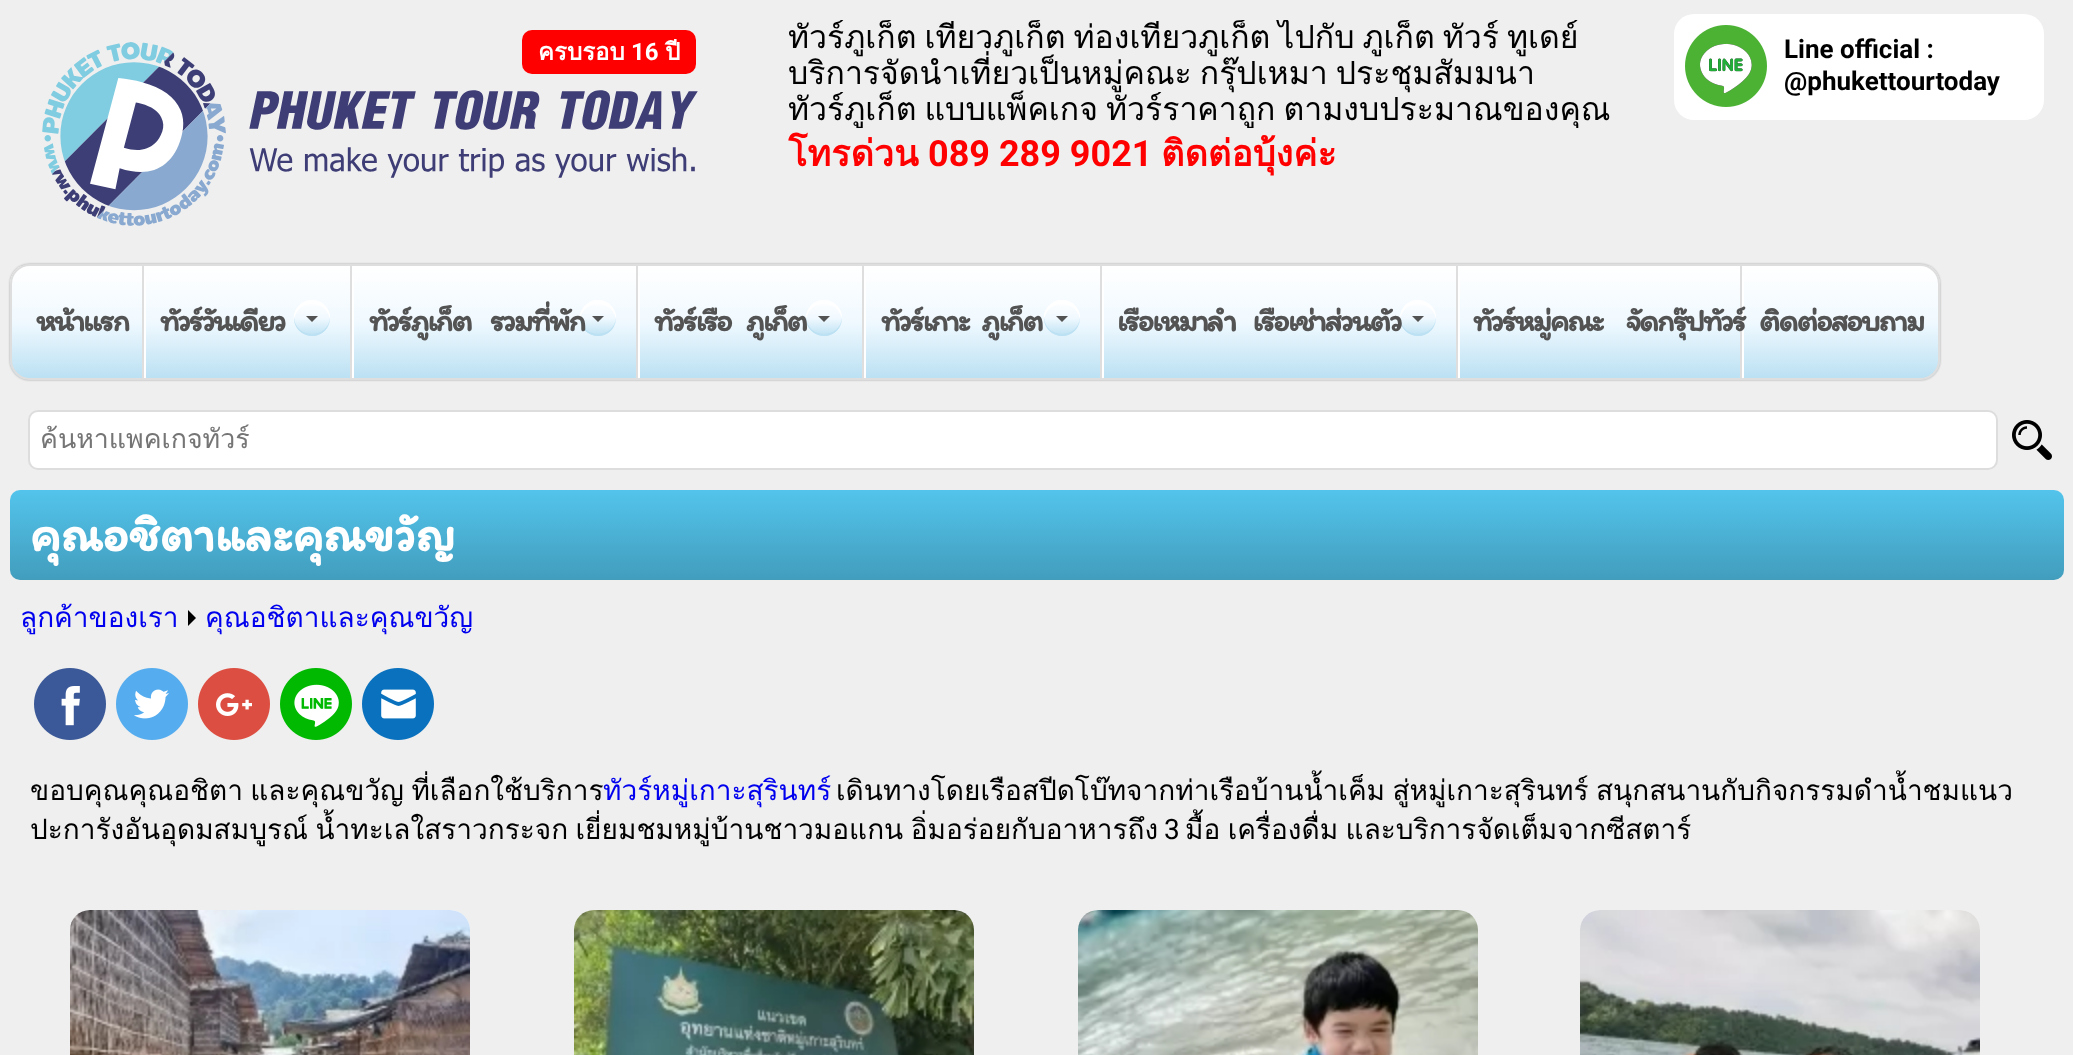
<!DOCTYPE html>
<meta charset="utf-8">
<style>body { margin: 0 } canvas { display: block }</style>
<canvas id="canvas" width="2073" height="1055"></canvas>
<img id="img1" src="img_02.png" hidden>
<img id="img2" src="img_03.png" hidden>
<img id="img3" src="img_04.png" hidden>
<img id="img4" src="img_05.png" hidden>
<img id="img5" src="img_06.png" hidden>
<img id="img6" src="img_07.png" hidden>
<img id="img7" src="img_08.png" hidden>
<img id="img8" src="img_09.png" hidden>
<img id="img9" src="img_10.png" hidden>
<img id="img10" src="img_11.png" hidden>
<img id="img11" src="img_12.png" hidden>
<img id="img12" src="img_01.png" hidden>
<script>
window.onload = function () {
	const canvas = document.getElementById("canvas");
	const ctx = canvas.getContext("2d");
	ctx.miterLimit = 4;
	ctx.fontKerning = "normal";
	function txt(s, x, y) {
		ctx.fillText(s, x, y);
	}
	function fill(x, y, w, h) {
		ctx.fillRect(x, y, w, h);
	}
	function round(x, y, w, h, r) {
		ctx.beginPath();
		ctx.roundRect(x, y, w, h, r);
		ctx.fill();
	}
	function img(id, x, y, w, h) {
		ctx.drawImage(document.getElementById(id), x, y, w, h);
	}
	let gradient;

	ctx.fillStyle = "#EFEFEF";
	fill(0, 0, 2073, 1055);
	ctx.fillStyle = "#FF0000";
	round(522, 30, 174, 44, 10);
	ctx.fillStyle = "#FFFFFF";
	round(1674, 14, 370, 106, 20);
	img("img1", 1685, 25, 82, 82);
	ctx.fillStyle = "rgba(0, 0, 0, 0.3)";
	ctx.filter = "blur(1px)";
	ctx.beginPath();
	ctx.roundRect(10, 264, 1930, 116, 20);
	ctx.fill();
	ctx.filter = "none";
	ctx.save();
	ctx.beginPath();
	ctx.roundRect(10, 264, 1930, 116, 20);
	ctx.clip();
	gradient = ctx.createLinearGradient(975, 266, 975, 378);
	gradient.addColorStop(0.01, "#FFFFFF");
	gradient.addColorStop(0.5, "#F0F9FF");
	gradient.addColorStop(0.99, "#BCE1F3");
	ctx.fillStyle = gradient;
	fill(10, 266, 1930, 112);
	ctx.restore();
	ctx.beginPath();
	ctx.roundRect(11, 265, 1928, 114, 19);
	ctx.strokeStyle = "#DEDEDE";
	ctx.lineWidth = 2;
	ctx.stroke();
	ctx.fillStyle = "#DEDEDE";
	fill(142, 266, 2, 112);
	fill(350, 266, 2, 112);
	ctx.fillStyle = "#FFFFFF";
	fill(144, 276, 2, 102);
	gradient = ctx.createLinearGradient(330, 300, 330, 372);
	gradient.addColorStop(0, "#FFFFFF");
	gradient.addColorStop(0.25, "#F1F9FF");
	gradient.addColorStop(0.5, "#BCE1F3");
	gradient.addColorStop(0.75, "#FFFFFF");
	gradient.addColorStop(1, "#F1F9FF");
	ctx.fillStyle = gradient;
	ctx.beginPath();
	ctx.arc(312, 318, 18, 0, Math.PI * 2);
	ctx.fill();
	ctx.fillStyle = "#FFFFFF";
	ctx.beginPath();
	ctx.moveTo(312, 304);
	ctx.bezierCurveTo(323, 304, 329, 311.5, 330, 320);
	ctx.bezierCurveTo(330.5, 316, 329.5, 311.5, 327, 308);
	ctx.bezierCurveTo(316.5, 292.5, 292, 301.5, 294, 320);
	ctx.bezierCurveTo(295, 311.5, 301, 304, 312, 304);
	ctx.closePath();
	ctx.fill();
	ctx.fillStyle = "#BCE1F3";
	ctx.beginPath();
	ctx.moveTo(330, 317);
	ctx.bezierCurveTo(329, 339.5, 295, 339.5, 294, 317);
	ctx.bezierCurveTo(293, 335, 317, 343, 327, 328);
	ctx.bezierCurveTo(329, 325, 330, 321, 330, 317);
	ctx.closePath();
	ctx.fill();
	ctx.fillStyle = "#535353";
	ctx.beginPath();
	ctx.moveTo(306, 316);
	ctx.lineTo(318, 316);
	ctx.lineTo(312, 322);
	ctx.closePath();
	ctx.fill();
	ctx.fillStyle = "#DEDEDE";
	fill(636, 266, 2, 112);
	ctx.fillStyle = "#FFFFFF";
	fill(352, 276, 2, 102);
	gradient = ctx.createLinearGradient(616, 300, 616, 372);
	gradient.addColorStop(0, "#FFFFFF");
	gradient.addColorStop(0.25, "#F1F9FF");
	gradient.addColorStop(0.5, "#BCE1F3");
	gradient.addColorStop(0.75, "#FFFFFF");
	gradient.addColorStop(1, "#F1F9FF");
	ctx.fillStyle = gradient;
	ctx.beginPath();
	ctx.arc(598, 318, 18, 0, Math.PI * 2);
	ctx.fill();
	ctx.fillStyle = "#FFFFFF";
	ctx.beginPath();
	ctx.moveTo(598, 304);
	ctx.bezierCurveTo(609, 304, 615, 311.5, 616, 320);
	ctx.bezierCurveTo(616.5, 316, 615.5, 311.5, 613, 308);
	ctx.bezierCurveTo(602.5, 292.5, 578, 301.5, 580, 320);
	ctx.bezierCurveTo(581, 311.5, 587, 304, 598, 304);
	ctx.closePath();
	ctx.fill();
	ctx.fillStyle = "#BCE1F3";
	ctx.beginPath();
	ctx.moveTo(616, 317);
	ctx.bezierCurveTo(615, 339.5, 581, 339.5, 580, 317);
	ctx.bezierCurveTo(579, 335, 603, 343, 613, 328);
	ctx.bezierCurveTo(615, 325, 616, 321, 616, 317);
	ctx.closePath();
	ctx.fill();
	ctx.fillStyle = "#535353";
	ctx.beginPath();
	ctx.moveTo(592, 316);
	ctx.lineTo(604, 316);
	ctx.lineTo(598, 322);
	ctx.closePath();
	ctx.fill();
	ctx.fillStyle = "#DEDEDE";
	fill(862, 266, 2, 112);
	ctx.fillStyle = "#FFFFFF";
	fill(638, 276, 2, 102);
	gradient = ctx.createLinearGradient(842, 300, 842, 372);
	gradient.addColorStop(0, "#FFFFFF");
	gradient.addColorStop(0.25, "#F1F9FF");
	gradient.addColorStop(0.5, "#BCE1F3");
	gradient.addColorStop(0.75, "#FFFFFF");
	gradient.addColorStop(1, "#F1F9FF");
	ctx.fillStyle = gradient;
	ctx.beginPath();
	ctx.arc(824, 318, 18, 0, Math.PI * 2);
	ctx.fill();
	ctx.fillStyle = "#FFFFFF";
	ctx.beginPath();
	ctx.moveTo(824, 304);
	ctx.bezierCurveTo(835, 304, 841, 311.5, 842, 320);
	ctx.bezierCurveTo(844, 301.5, 819.5, 292.5, 809, 308);
	ctx.bezierCurveTo(806.5, 311.5, 805.5, 316, 806, 320);
	ctx.bezierCurveTo(807, 311.5, 813, 304, 824, 304);
	ctx.closePath();
	ctx.fill();
	ctx.fillStyle = "#BCE1F3";
	ctx.beginPath();
	ctx.moveTo(842, 317);
	ctx.bezierCurveTo(841, 339.5, 807, 339.5, 806, 317);
	ctx.bezierCurveTo(805, 335, 829, 343, 839, 328);
	ctx.bezierCurveTo(841, 325, 842, 321, 842, 317);
	ctx.closePath();
	ctx.fill();
	ctx.fillStyle = "#535353";
	ctx.beginPath();
	ctx.moveTo(818, 316);
	ctx.lineTo(830, 316);
	ctx.lineTo(824, 322);
	ctx.closePath();
	ctx.fill();
	ctx.fillStyle = "#DEDEDE";
	fill(1100, 266, 2, 112);
	ctx.fillStyle = "#FFFFFF";
	fill(864, 276, 2, 102);
	gradient = ctx.createLinearGradient(1080, 300, 1080, 372);
	gradient.addColorStop(0, "#FFFFFF");
	gradient.addColorStop(0.25, "#F1F9FF");
	gradient.addColorStop(0.5, "#BCE1F3");
	gradient.addColorStop(0.75, "#FFFFFF");
	gradient.addColorStop(1, "#F1F9FF");
	ctx.fillStyle = gradient;
	ctx.beginPath();
	ctx.arc(1062, 318, 18, 0, Math.PI * 2);
	ctx.fill();
	ctx.fillStyle = "#FFFFFF";
	ctx.beginPath();
	ctx.moveTo(1062, 304);
	ctx.bezierCurveTo(1073, 304, 1079, 311.5, 1080, 320);
	ctx.bezierCurveTo(1080.5, 316, 1079.5, 311.5, 1077, 308);
	ctx.bezierCurveTo(1066.5, 292.5, 1042, 301.5, 1044, 320);
	ctx.bezierCurveTo(1045, 311.5, 1051, 304, 1062, 304);
	ctx.closePath();
	ctx.fill();
	ctx.fillStyle = "#BCE1F3";
	ctx.beginPath();
	ctx.moveTo(1080, 317);
	ctx.bezierCurveTo(1079, 339.5, 1045, 339.5, 1044, 317);
	ctx.bezierCurveTo(1043, 335, 1067, 343, 1077, 328);
	ctx.bezierCurveTo(1079, 325, 1080, 321, 1080, 317);
	ctx.closePath();
	ctx.fill();
	ctx.fillStyle = "#535353";
	ctx.beginPath();
	ctx.moveTo(1056, 316);
	ctx.lineTo(1068, 316);
	ctx.lineTo(1062, 322);
	ctx.closePath();
	ctx.fill();
	ctx.fillStyle = "#DEDEDE";
	fill(1456, 266, 2, 112);
	ctx.fillStyle = "#FFFFFF";
	fill(1102, 276, 2, 102);
	gradient = ctx.createLinearGradient(1436, 300, 1436, 372);
	gradient.addColorStop(0, "#FFFFFF");
	gradient.addColorStop(0.25, "#F1F9FF");
	gradient.addColorStop(0.5, "#BCE1F3");
	gradient.addColorStop(0.75, "#FFFFFF");
	gradient.addColorStop(1, "#F1F9FF");
	ctx.fillStyle = gradient;
	ctx.beginPath();
	ctx.arc(1418, 318, 18, 0, Math.PI * 2);
	ctx.fill();
	ctx.fillStyle = "#FFFFFF";
	ctx.beginPath();
	ctx.moveTo(1418, 304);
	ctx.bezierCurveTo(1429, 304, 1435, 311.5, 1436, 320);
	ctx.bezierCurveTo(1438, 301.5, 1413.5, 292.5, 1403, 308);
	ctx.bezierCurveTo(1400.5, 311.5, 1399.5, 316, 1400, 320);
	ctx.bezierCurveTo(1401, 311.5, 1407, 304, 1418, 304);
	ctx.closePath();
	ctx.fill();
	ctx.fillStyle = "#BCE1F3";
	ctx.beginPath();
	ctx.moveTo(1436, 317);
	ctx.bezierCurveTo(1435, 339.5, 1401, 339.5, 1400, 317);
	ctx.bezierCurveTo(1399, 335, 1423, 343, 1433, 328);
	ctx.bezierCurveTo(1435, 325, 1436, 321, 1436, 317);
	ctx.closePath();
	ctx.fill();
	ctx.fillStyle = "#535353";
	ctx.beginPath();
	ctx.moveTo(1412, 316);
	ctx.lineTo(1424, 316);
	ctx.lineTo(1418, 322);
	ctx.closePath();
	ctx.fill();
	ctx.fillStyle = "#DEDEDE";
	fill(1740, 266, 2, 112);
	ctx.fillStyle = "#FFFFFF";
	fill(1458, 276, 2, 102);
	fill(1742, 276, 2, 102);
	ctx.beginPath();
	ctx.roundRect(29, 411, 1968, 58, 9);
	ctx.fill();
	ctx.strokeStyle = "#DDDDDD";
	ctx.stroke();
	img("img2", 2012, 420, 40, 40);
	gradient = ctx.createLinearGradient(1037, 490, 1037, 580);
	gradient.addColorStop(0, "#53C4EC");
	gradient.addColorStop(1, "#429DBD");
	ctx.fillStyle = gradient;
	round(10, 490, 2054, 90, 10);
	ctx.fillStyle = "#000000";
	ctx.beginPath();
	ctx.moveTo(188, 626);
	ctx.lineTo(188, 610);
	ctx.lineTo(196, 618);
	ctx.closePath();
	ctx.fill();
	img("img3", 34, 668, 72, 72);
	img("img4", 116, 668, 72, 72);
	img("img5", 198, 668, 72, 72);
	img("img6", 280, 668, 72, 72);
	img("img7", 362, 668, 72, 72);
	ctx.fillStyle = "#FFFFFF";
	round(70, 910, 400, 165, 20);
	img("img8", 70, 910, 400, 145);
	round(574, 910, 400, 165, 20);
	img("img9", 574, 910, 400, 145);
	round(1078, 910, 400, 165, 20);
	img("img10", 1078, 910, 400, 145);
	round(1580, 910, 400, 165, 20);
	img("img11", 1580, 910, 400, 145);
	ctx.font = "bold 24px Loma";
	txt("ครบรอบ", 538, 60);
	ctx.font = "bold 24px Roboto";
	txt("16", 631, 60);
	ctx.font = "bold 24px Loma";
	txt("ปี", 665, 60);
	img("img12", 42, 42, 656, 184);
	ctx.save();
	ctx.beginPath();
	ctx.rect(788, 20, 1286, 108);
	ctx.clip();
	ctx.wordSpacing = "-2.75px";
	ctx.font = "32px Loma";
	ctx.fillStyle = "#000000";
	txt("ทัวร์ภูเก็ต เที่ยวภูเก็ต ท่องเที่ยวภูเก็ต ไปกับ ภูเก็ต ทัวร์ ทูเดย์", 788, 48);
	ctx.restore();
	ctx.wordSpacing = "-2.75px";
	ctx.font = "32px Loma";
	ctx.fillStyle = "#000000";
	txt("บริการจัดนำเที่ยวเป็นหมู่คณะ กรุ๊ปเหมา ประชุมสัมมนา", 788, 84);
	ctx.save();
	ctx.beginPath();
	ctx.rect(788, 20, 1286, 108);
	ctx.clip();
	txt("ทัวร์ภูเก็ต แบบแพ็คเกจ ทัวร์ราคาถูก ตามงบประมาณของคุณ", 788, 120);
	ctx.restore();
	ctx.wordSpacing = "0px";
	ctx.font = "bold 26px Roboto";
	txt("Line official :", 1784, 58);
	txt("@phukettourtoday", 1784, 90);
	ctx.font = "bold 36px Loma";
	ctx.fillStyle = "#FF0000";
	txt("โทรด่วน", 788, 166);
	ctx.font = "bold 36px Roboto";
	txt("089 289 9021", 928, 166);
	ctx.font = "bold 36px Loma";
	txt("ติดต่อบุ้งค่ะ", 1161, 166);
	ctx.letterSpacing = "-2px";
	ctx.font = "bold 31.5px Itim";
	ctx.fillStyle = "#535353";
	txt("หน้าแรก", 36, 331);
	txt("ทัวร์วันเดียว", 160, 331);
	ctx.wordSpacing = "14px";
	txt("ทัวร์ภูเก็ต รวมที่พัก", 369, 331);
	ctx.wordSpacing = "10px";
	txt("ทัวร์เรือ ภูเก็ต", 654, 331);
	ctx.wordSpacing = "8px";
	txt("ทัวร์เกาะ ภูเก็ต", 881, 331);
	ctx.wordSpacing = "12px";
	txt("เรือเหมาลำ เรือเช่าส่วนตัว", 1117, 331);
	ctx.wordSpacing = "18px";
	txt("ทัวร์หมู่คณะ จัดกรุ๊ปทัวร์", 1473, 331);
	ctx.wordSpacing = "0px";
	txt("ติดต่อสอบถาม", 1759, 331);
	ctx.save();
	ctx.beginPath();
	ctx.rect(40, 418, 1920, 42);
	ctx.clip();
	ctx.letterSpacing = "0px";
	ctx.font = "26.75px Loma";
	ctx.fillStyle = "#757575";
	txt("ค้นหาแพคเกจทัวร์", 40, 448);
	ctx.restore();
	ctx.letterSpacing = "0px";
	ctx.font = "bold 50px Itim";
	ctx.fillStyle = "#FFFFFF";
	txt("คุณอชิตาและคุณขวัญ", 30, 551);
	ctx.font = "28px Loma";
	ctx.fillStyle = "#0000EE";
	txt("ลูกค้าของเรา", 20, 627);
	txt("คุณอชิตาและคุณขวัญ", 205, 627);
	ctx.wordSpacing = "-2px";
	ctx.fillStyle = "#000000";
	txt("ขอบคุณคุณอชิตา และคุณขวัญ ที่เลือกใช้บริการ", 30, 800);
	ctx.wordSpacing = "0px";
	ctx.fillStyle = "#0000EE";
	txt("ทัวร์หมู่เกาะสุรินทร์", 603, 800);
	ctx.wordSpacing = "-2px";
	ctx.fillStyle = "#000000";
	txt("เดินทางโดยเรือสปีดโบ๊ทจากท่าเรือบ้านน้ำเค็ม สู่หมู่เกาะสุรินทร์ สนุกสนานกับกิจกรรมดำน้ำชมแนว", 836, 800);
	txt("ปะการังอันอุดมสมบูรณ์ น้ำทะเลใสราวกระจก เยี่ยมชมหมู่บ้านชาวมอแกน อิ่มอร่อยกับอาหารถึง", 30, 839);
	ctx.wordSpacing = "0px";
	ctx.font = "28px Roboto";
	txt("3", 1164, 839);
	ctx.wordSpacing = "-2px";
	ctx.font = "28px Loma";
	txt("มื้อ เครื่องดื่ม และบริการจัดเต็มจากซีสตาร์", 1185, 839);
};
</script>
